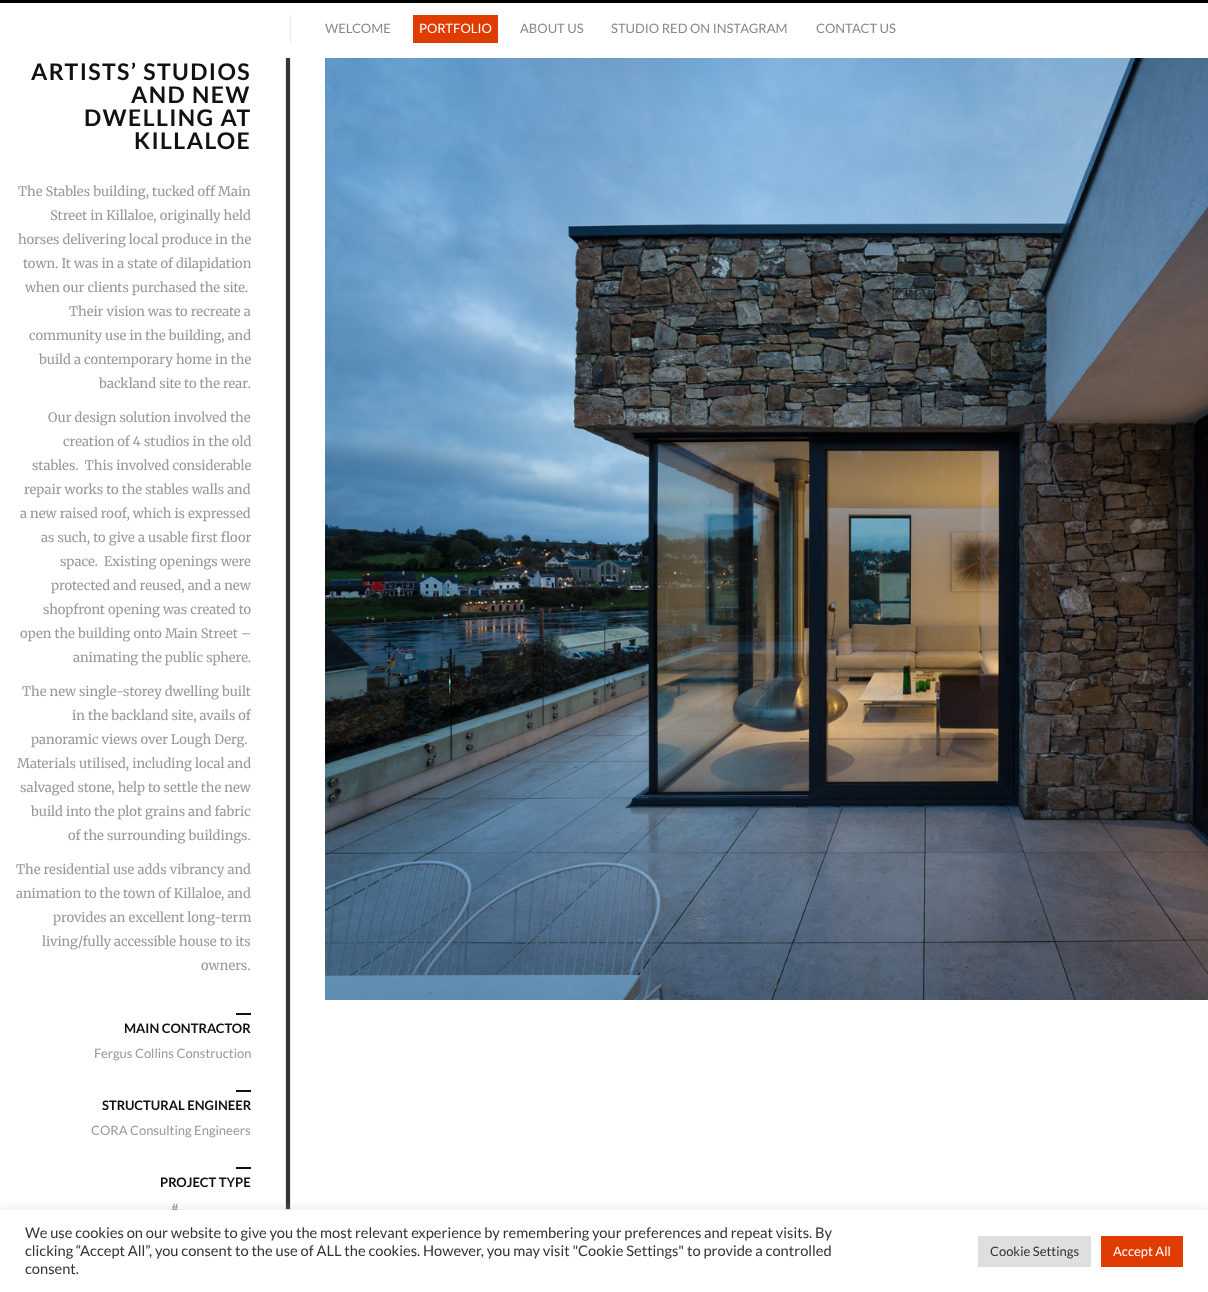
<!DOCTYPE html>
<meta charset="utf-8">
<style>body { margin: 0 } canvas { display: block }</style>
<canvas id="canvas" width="1208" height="1292"></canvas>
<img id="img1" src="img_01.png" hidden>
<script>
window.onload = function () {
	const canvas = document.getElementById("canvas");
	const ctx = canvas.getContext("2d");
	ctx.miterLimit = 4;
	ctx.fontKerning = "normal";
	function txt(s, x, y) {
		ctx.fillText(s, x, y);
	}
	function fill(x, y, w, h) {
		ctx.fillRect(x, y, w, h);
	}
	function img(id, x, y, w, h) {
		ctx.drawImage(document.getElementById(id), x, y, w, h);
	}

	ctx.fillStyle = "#FFFFFF";
	fill(0, 0, 1208, 1292);
	ctx.fillStyle = "#000000";
	fill(0, 0, 1208, 3);
	ctx.fillStyle = "#EBEBEB";
	fill(290, 15, 1, 28);
	ctx.fillStyle = "#E03B00";
	fill(413, 15, 85, 28);
	ctx.fillStyle = "#111111";
	fill(236, 1013, 15, 2);
	fill(236, 1090, 15, 2);
	fill(236, 1167, 15, 2);
	ctx.fillStyle = "#EAEAEA";
	fill(285, 58, 6, 1152);
	ctx.fillStyle = "#333333";
	fill(286, 58, 4, 1151);
	img("img1", 325, 58, 883, 942);
	ctx.fillStyle = "rgba(172, 171, 171, 0.3)";
	ctx.filter = "blur(5px)";
	ctx.beginPath();
	ctx.rect(0, 1209, 1208, 82);
	ctx.fill();
	ctx.filter = "none";
	ctx.font = "13px Lato";
	ctx.fillStyle = "#888888";
	txt("WELCOME", 325, 33);
	ctx.fillStyle = "#FFFFFF";
	txt("PORTFOLIO", 419, 33);
	ctx.fillStyle = "#888888";
	txt("ABOUT US", 520, 33);
	txt("STUDIO RED ON INSTAGRAM", 611, 33);
	txt("CONTACT US", 816, 33);
	ctx.letterSpacing = "1.4px";
	ctx.font = "bold 23px Lato";
	ctx.fillStyle = "#111111";
	txt("ARTISTS’ STUDIOS", 31, 80);
	txt("AND NEW", 131, 103);
	txt("DWELLING AT", 84, 126);
	txt("KILLALOE", 134, 149);
	ctx.letterSpacing = "0px";
	ctx.font = "300 13px Merriweather";
	ctx.fillStyle = "#999999";
	txt("The Stables building, tucked off Main", 18, 196);
	txt("Street in Killaloe, originally held", 50, 220);
	txt("horses delivering local produce in the", 18, 244);
	txt("town. It was in a state of dilapidation", 23, 268);
	txt("when our clients purchased the site.", 25, 292);
	txt("Their vision was to recreate a", 69, 316);
	txt("community use in the building, and", 29, 340);
	txt("build a contemporary home in the", 39, 364);
	txt("backland site to the rear.", 99, 388);
	txt("Our design solution involved the", 48, 422);
	txt("creation of 4 studios in the old", 63, 446);
	txt("stables.  This involved considerable", 32, 470);
	txt("repair works to the stables walls and", 24, 494);
	txt("a new raised roof, which is expressed", 20, 518);
	txt("as such, to give a usable first floor", 41, 542);
	txt("space.  Existing openings were", 60, 566);
	txt("protected and reused, and a new", 51, 590);
	txt("shopfront opening was created to", 43, 614);
	txt("open the building onto Main Street –", 20, 638);
	txt("animating the public sphere.", 73, 662);
	txt("The new single-storey dwelling built", 22, 696);
	txt("in the backland site, avails of", 72, 720);
	txt("panoramic views over Lough Derg.", 31, 744);
	txt("Materials utilised, including local and", 17, 768);
	txt("salvaged stone, help to settle the new", 20, 792);
	txt("build into the plot grains and fabric", 31, 816);
	txt("of the surrounding buildings.", 68, 840);
	txt("The residential use adds vibrancy and", 16, 874);
	txt("animation to the town of Killaloe, and", 16, 898);
	txt("provides an excellent long-term", 53, 922);
	txt("living/fully accessible house to its", 42, 946);
	txt("owners.", 201, 970);
	ctx.font = "bold 13px Lato";
	ctx.fillStyle = "#111111";
	txt("MAIN CONTRACTOR", 124, 1033);
	ctx.font = "13px Lato";
	ctx.fillStyle = "#999999";
	txt("Fergus Collins Construction", 94, 1058);
	ctx.font = "bold 13px Lato";
	ctx.fillStyle = "#111111";
	txt("STRUCTURAL ENGINEER", 102, 1110);
	ctx.font = "13px Lato";
	ctx.fillStyle = "#999999";
	txt("CORA Consulting Engineers", 91, 1135);
	ctx.font = "bold 13px Lato";
	ctx.fillStyle = "#111111";
	txt("PROJECT TYPE", 160, 1187);
	ctx.font = "13px Lato";
	ctx.fillStyle = "#888888";
	txt("#", 171, 1213);
	ctx.fillStyle = "#FFFFFF";
	fill(0, 1210, 1208, 82);
	ctx.font = "14.67px Lato";
	ctx.fillStyle = "#333333";
	txt("We use cookies on our website to give you the most relevant experience by remembering your preferences and repeat visits. By", 25, 1238);
	txt("clicking “Accept All”, you consent to the use of ALL the cookies. However, you may visit \"Cookie Settings\" to provide a controlled", 25, 1256);
	txt("consent.", 25, 1274);
	ctx.fillStyle = "#DEDFE0";
	fill(978, 1236, 113, 31);
	ctx.font = "13px Lato";
	ctx.fillStyle = "#333333";
	txt("Cookie Settings", 990, 1256);
	ctx.fillStyle = "#E03B01";
	fill(1101, 1236, 82, 31);
	ctx.fillStyle = "#FFFFFF";
	txt("Accept All", 1113, 1256);
};
</script>
